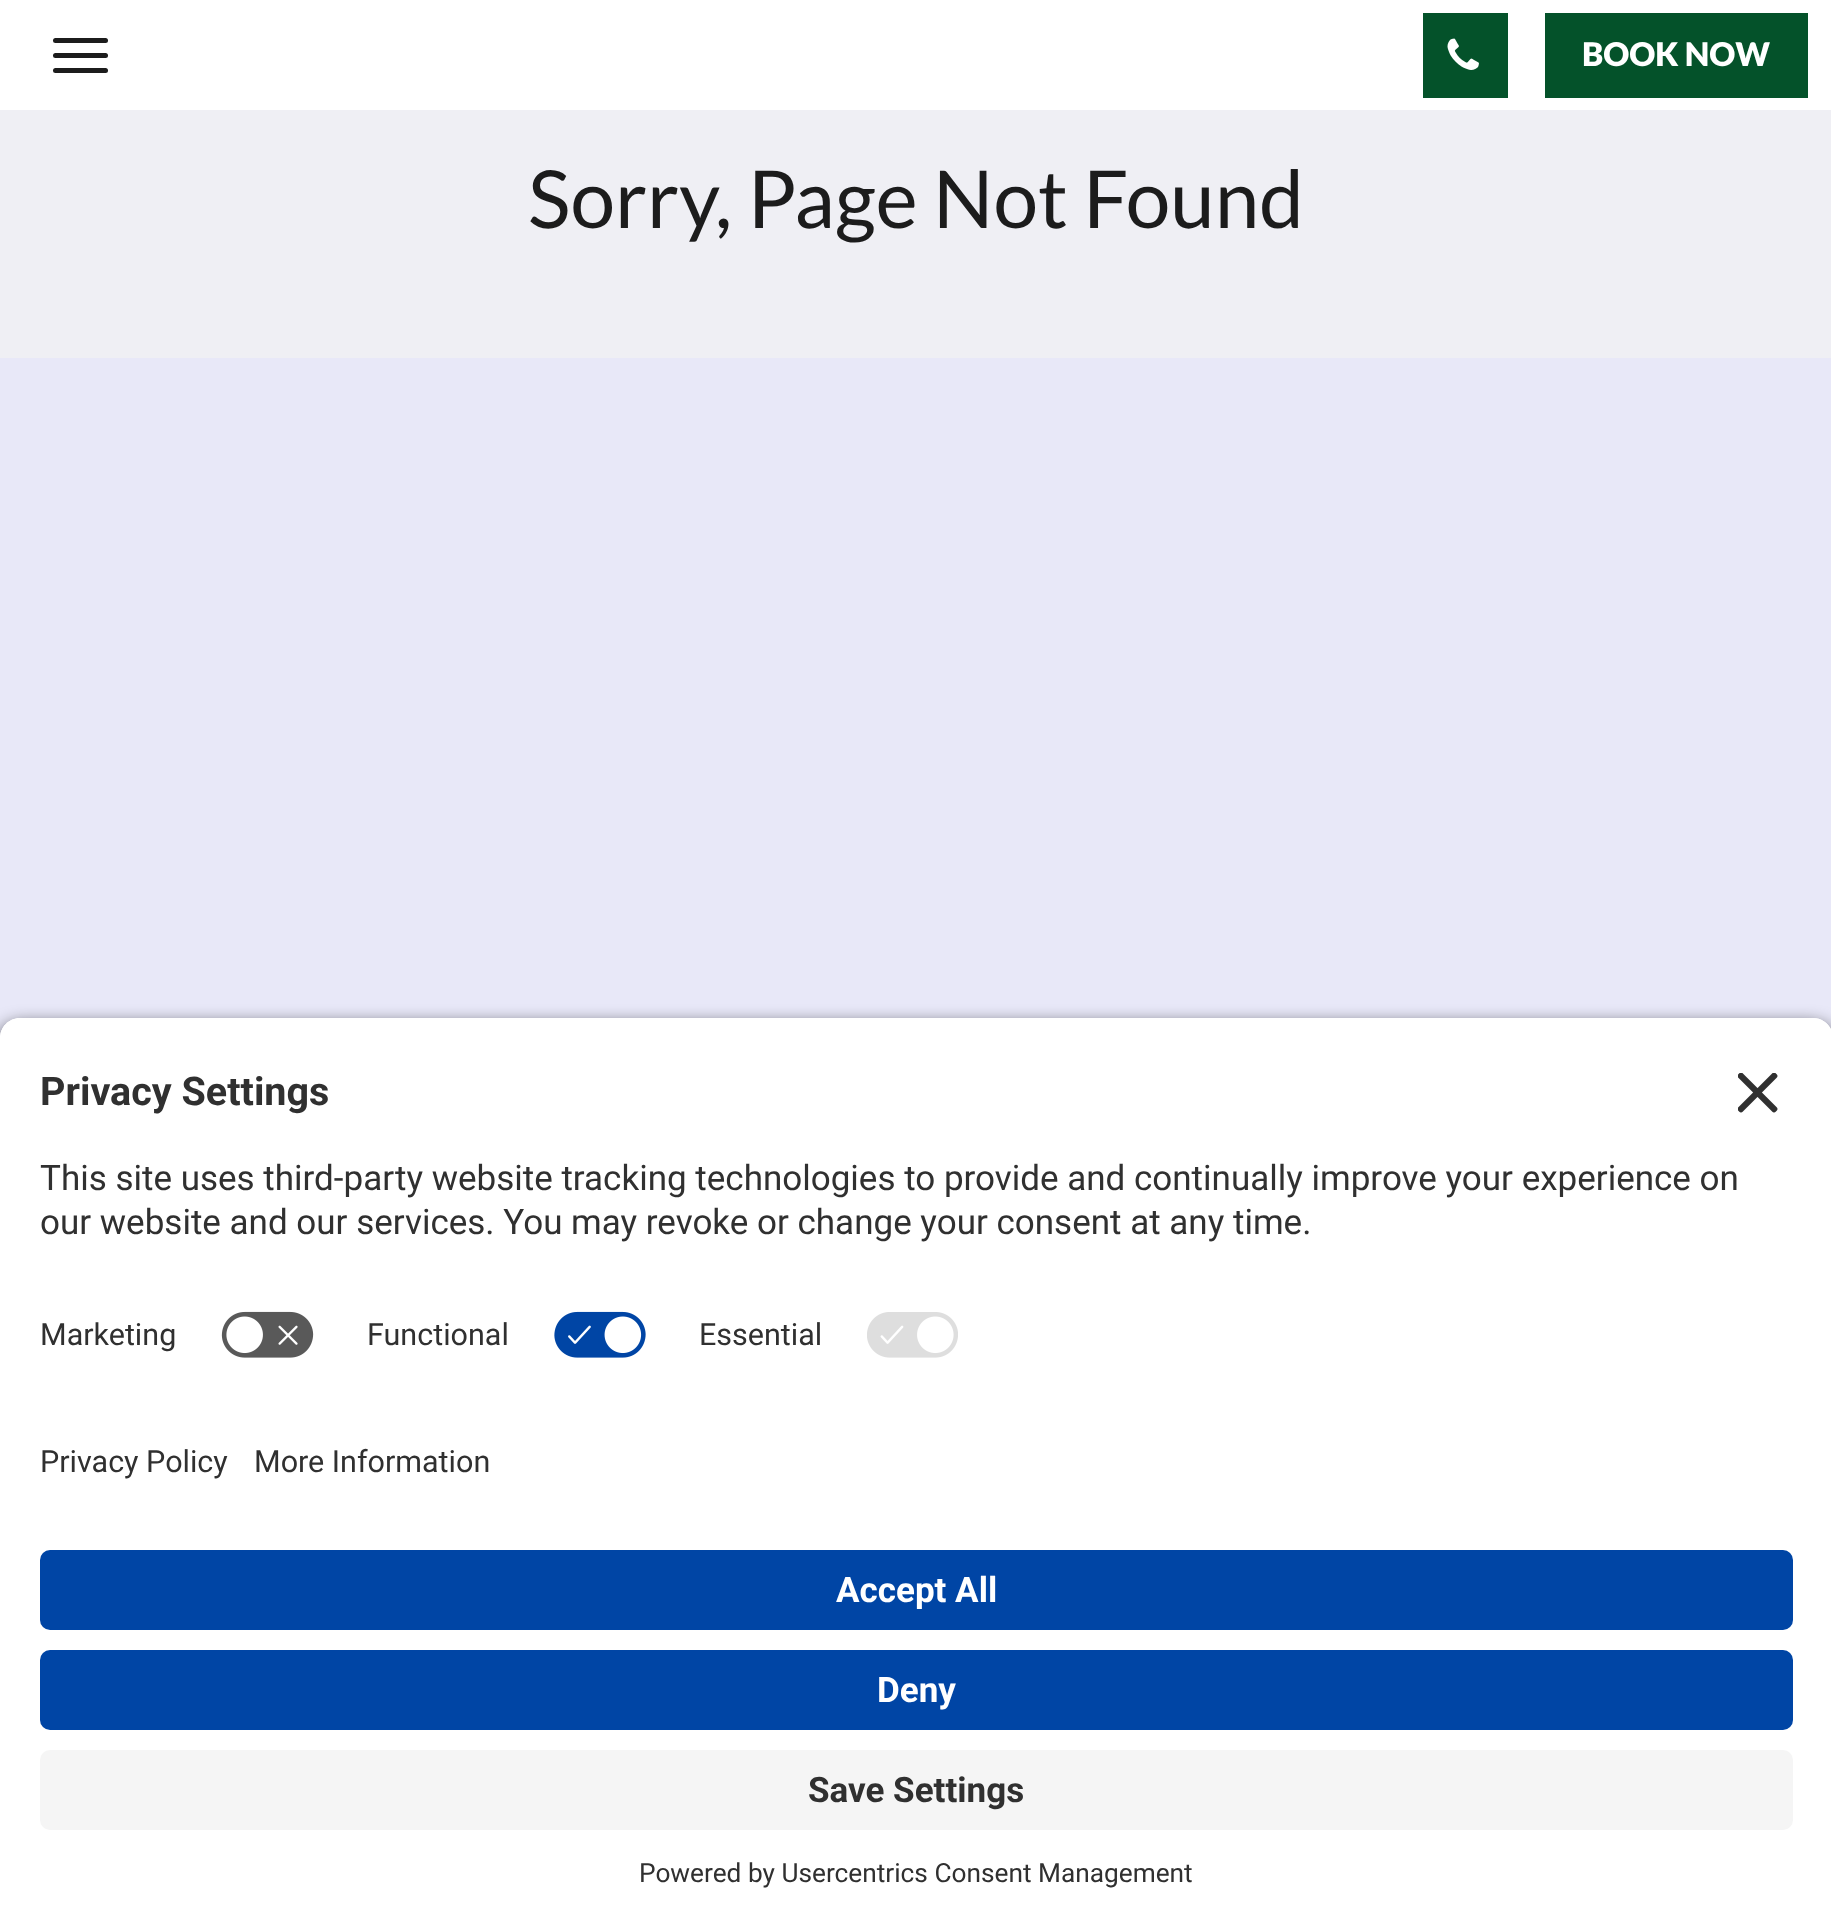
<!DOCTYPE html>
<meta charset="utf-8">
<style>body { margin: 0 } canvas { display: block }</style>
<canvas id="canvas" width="1831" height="1928"></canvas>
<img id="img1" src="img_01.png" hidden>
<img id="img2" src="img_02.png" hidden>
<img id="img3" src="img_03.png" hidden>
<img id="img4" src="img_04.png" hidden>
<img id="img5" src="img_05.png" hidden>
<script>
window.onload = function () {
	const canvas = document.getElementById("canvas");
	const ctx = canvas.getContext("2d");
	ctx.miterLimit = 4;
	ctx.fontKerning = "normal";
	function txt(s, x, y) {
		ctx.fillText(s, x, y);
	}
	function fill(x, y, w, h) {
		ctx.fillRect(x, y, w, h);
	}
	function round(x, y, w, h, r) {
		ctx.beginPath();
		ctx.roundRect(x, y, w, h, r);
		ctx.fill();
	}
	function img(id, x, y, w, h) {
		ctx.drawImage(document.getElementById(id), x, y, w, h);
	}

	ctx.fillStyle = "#EFEFF4";
	fill(0, 0, 1831, 1928);
	ctx.fillStyle = "#FFFFFF";
	fill(0, 0, 1831, 110);
	ctx.fillStyle = "#1C1C1C";
	round(53, 38, 55, 5, 2.5);
	round(53, 53, 55, 5, 2.5);
	round(53, 68, 55, 5, 2.5);
	ctx.fillStyle = "#04522A";
	fill(1423, 13, 85, 85);
	img("img1", 1447, 38, 32, 32);
	fill(1545, 13, 263, 85);
	ctx.fillStyle = "#E8E8F8";
	fill(0, 358, 1831, 680);
	ctx.fillStyle = "rgba(0, 0, 0, 0.8)";
	ctx.filter = "blur(9px)";
	ctx.beginPath();
	ctx.roundRect(0, 1025, 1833, 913, 20);
	ctx.fill();
	ctx.filter = "none";
	ctx.fillStyle = "#FFFFFF";
	ctx.beginPath();
	ctx.moveTo(20, 1018);
	ctx.lineTo(1813, 1018);
	ctx.bezierCurveTo(1824, 1018, 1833, 1027, 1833, 1038);
	ctx.lineTo(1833, 1405);
	ctx.lineTo(0, 1405);
	ctx.lineTo(0, 1038);
	ctx.bezierCurveTo(0, 1027, 9, 1018, 20, 1018);
	ctx.closePath();
	ctx.fill();
	ctx.beginPath();
	ctx.moveTo(20, 1018);
	ctx.lineTo(1813, 1018);
	ctx.bezierCurveTo(1824, 1018, 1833, 1027, 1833, 1038);
	ctx.lineTo(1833, 1295);
	ctx.lineTo(0, 1295);
	ctx.lineTo(0, 1038);
	ctx.bezierCurveTo(0, 1027, 9, 1018, 20, 1018);
	ctx.closePath();
	ctx.fill();
	img("img2", 1738, 1073, 40, 40);
	img("img3", 221, 1311, 93, 47);
	img("img4", 554, 1311, 92, 47);
	img("img5", 867, 1312, 91, 46);
	fill(0, 1405, 1831, 523);
	ctx.fillStyle = "#0045A5";
	round(40, 1550, 1753, 80, 10);
	round(40, 1650, 1753, 80, 10);
	ctx.fillStyle = "#F5F5F5";
	round(40, 1750, 1753, 80, 10);
	ctx.font = "900 32.5px Lato";
	ctx.fillStyle = "#FFFFFF";
	txt("BOOK NOW", 1582, 66);
	ctx.font = "80px Lato";
	ctx.fillStyle = "#1C1C1C";
	txt("Sorry, Page Not Found", 528, 228);
	ctx.font = "bold 39.5px Roboto";
	ctx.fillStyle = "#303030";
	txt("Privacy Settings", 40, 1105);
	ctx.font = "35px Roboto";
	txt("This site uses third-party website tracking technologies to provide and continually improve your experience on", 40, 1190);
	txt("our website and our services. You may revoke or change your consent at any time.", 40, 1234);
	ctx.font = "30.5px Roboto";
	txt("Marketing", 40, 1345);
	txt("Functional", 367, 1345);
	txt("Essential", 699, 1345);
	txt("Privacy Policy", 40, 1472);
	txt("More Information", 254, 1472);
	ctx.font = "bold 35px Roboto";
	ctx.fillStyle = "#FFFFFF";
	txt("Accept All", 836, 1602);
	txt("Deny", 877, 1702);
	ctx.fillStyle = "#303030";
	txt("Save Settings", 808, 1802);
	ctx.font = "26.25px Roboto";
	txt("Powered by Usercentrics Consent Management", 639, 1882);
};
</script>
